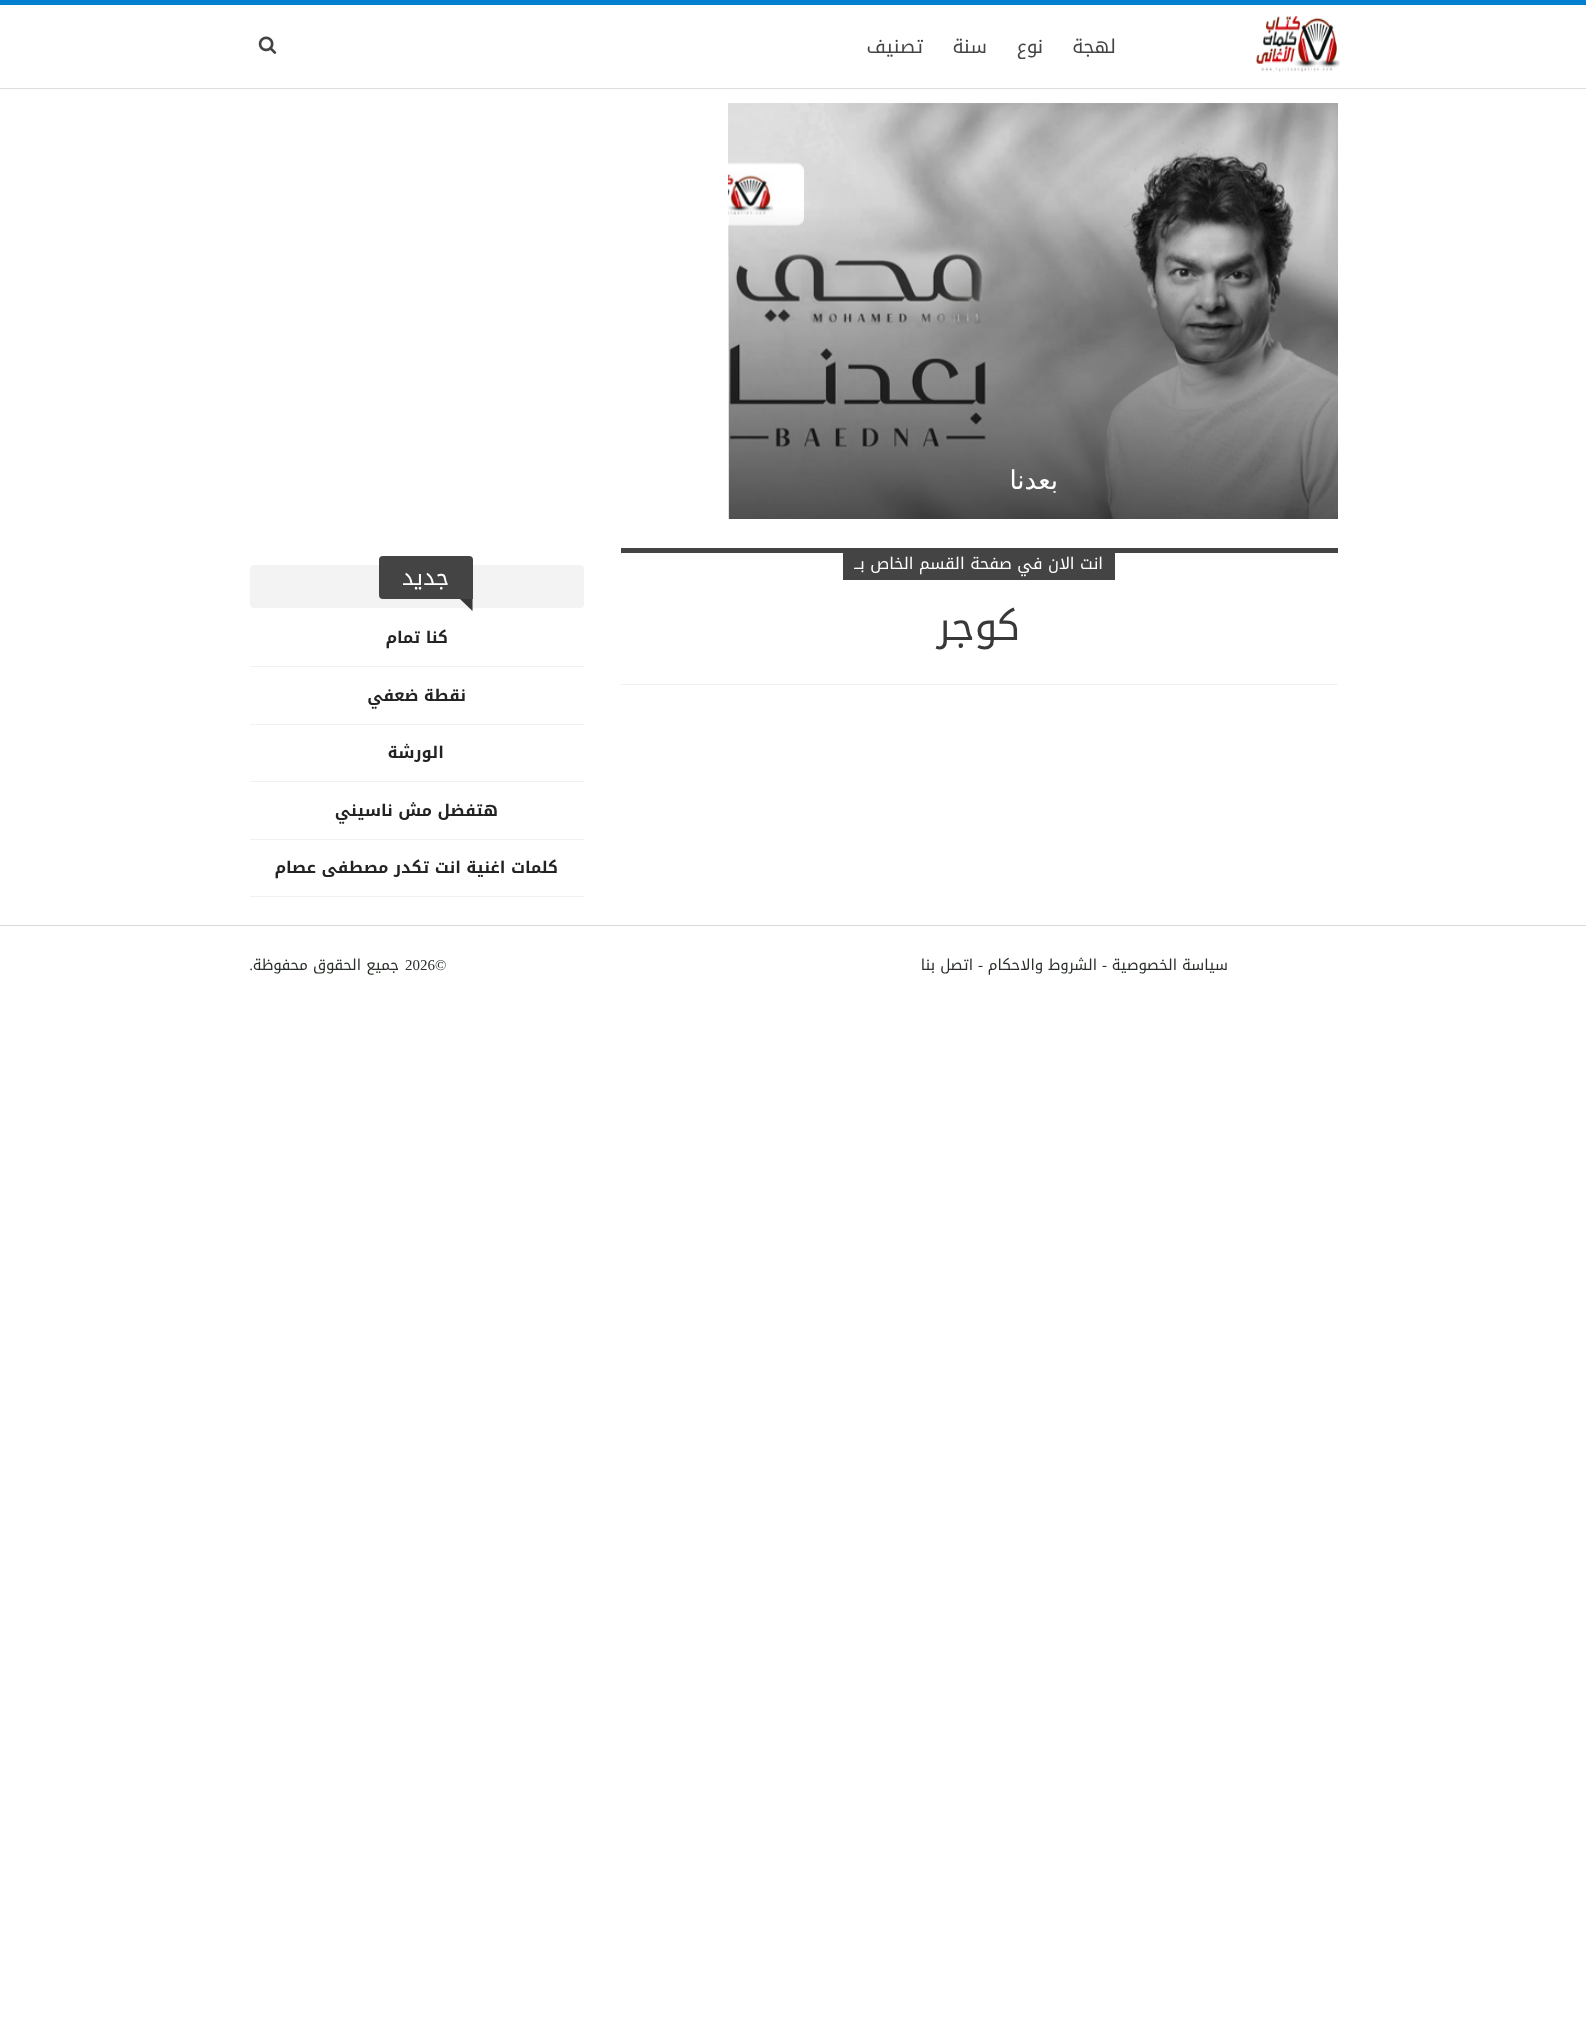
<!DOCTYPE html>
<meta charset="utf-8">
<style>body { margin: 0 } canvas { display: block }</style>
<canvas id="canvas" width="1586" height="2044"></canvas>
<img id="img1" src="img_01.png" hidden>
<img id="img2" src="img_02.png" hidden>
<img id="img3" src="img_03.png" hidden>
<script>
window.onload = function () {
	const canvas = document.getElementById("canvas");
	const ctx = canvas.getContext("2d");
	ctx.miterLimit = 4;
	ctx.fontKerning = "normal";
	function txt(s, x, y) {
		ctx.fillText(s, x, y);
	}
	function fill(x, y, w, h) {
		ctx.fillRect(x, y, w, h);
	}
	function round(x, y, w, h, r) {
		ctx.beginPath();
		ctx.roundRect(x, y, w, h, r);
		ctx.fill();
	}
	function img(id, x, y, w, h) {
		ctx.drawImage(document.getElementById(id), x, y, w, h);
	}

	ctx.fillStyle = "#FFFFFF";
	fill(0, 0, 1586, 2044);
	ctx.fillStyle = "#0080CE";
	fill(0, 0, 1586, 5);
	ctx.fillStyle = "#DEDEDE";
	fill(0, 88, 1586, 1);
	img("img1", 1256, 16, 84, 56);
	img("img2", 258, 36, 19, 18);
	img("img3", 728, 103, 610, 416);
	ctx.fillStyle = "#F0F0F0";
	fill(621, 684, 717, 1);
	ctx.fillStyle = "#444444";
	fill(621, 548, 717, 5);
	fill(843, 553, 272, 27);
	ctx.fillStyle = "#F3F3F3";
	round(250, 565, 334, 43, 4);
	ctx.fillStyle = "#444444";
	ctx.beginPath();
	ctx.roundRect(379, 556, 94, 43, [4, 4, 0, 4]);
	ctx.fill();
	ctx.beginPath();
	ctx.moveTo(460, 599);
	ctx.lineTo(472.5, 599);
	ctx.lineTo(472.5, 611);
	ctx.closePath();
	ctx.fill();
	ctx.fillStyle = "rgba(0, 0, 0, 0.18)";
	ctx.beginPath();
	ctx.moveTo(460, 599);
	ctx.lineTo(472.5, 599);
	ctx.lineTo(472.5, 611);
	ctx.closePath();
	ctx.fill();
	ctx.fillStyle = "#F0F0F0";
	fill(250, 666, 334, 1);
	fill(250, 724, 334, 1);
	fill(250, 781, 334, 1);
	fill(250, 839, 334, 1);
	fill(250, 896, 334, 1);
	ctx.fillStyle = "#D9D9D9";
	fill(0, 925, 1586, 1);
	ctx.direction = "rtl";
	ctx.font = "19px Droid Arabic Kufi";
	ctx.fillStyle = "#444444";
	txt("لهجة", 1116, 53);
	txt("نوع", 1043, 53);
	txt("سنة", 987, 53);
	txt("تصنيف", 923, 53);
	ctx.font = "26px DejaVu Sans";
	ctx.fillStyle = "#FFFFFF";
	txt("بعدنا", 1058, 489);
	ctx.font = "16.25px Droid Arabic Kufi";
	txt("انت الان في صفحة القسم الخاص بــ", 1103, 569);
	ctx.font = "40px Droid Arabic Kufi";
	ctx.fillStyle = "#383838";
	txt("كوجر", 1020, 640);
	ctx.font = "22.5px Droid Arabic Kufi";
	ctx.fillStyle = "#FFFFFF";
	txt("جديد", 449, 585);
	ctx.font = "bold 16.25px Droid Arabic Kufi";
	ctx.fillStyle = "#232323";
	txt("كنا تمام", 448, 643);
	txt("نقطة ضعفي", 466, 701);
	txt("الورشة", 444, 758);
	txt("هتفضل مش ناسيني", 498, 816);
	txt("كلمات اغنية انت تكدر مصطفى عصام", 558, 873);
	ctx.font = "15px Droid Arabic Kufi";
	ctx.fillStyle = "#282E28";
	txt("سياسة الخصوصية", 1228, 970);
	ctx.direction = "ltr";
	ctx.font = "15px Liberation Serif";
	txt("-", 1102, 970);
	ctx.direction = "rtl";
	ctx.font = "15px Droid Arabic Kufi";
	txt("الشروط والاحكام", 1097, 970);
	ctx.direction = "ltr";
	ctx.font = "15px Liberation Serif";
	txt("-", 978, 970);
	ctx.direction = "rtl";
	ctx.font = "15px Droid Arabic Kufi";
	txt("اتصل بنا", 973, 970);
	ctx.direction = "ltr";
	ctx.font = "15px Liberation Serif";
	txt("2026©", 405, 970);
	ctx.direction = "rtl";
	ctx.font = "15px Droid Arabic Kufi";
	txt("جميع الحقوق محفوظة", 399, 970);
	ctx.font = "15px Liberation Serif";
	txt(".", 253, 970);
};
</script>
